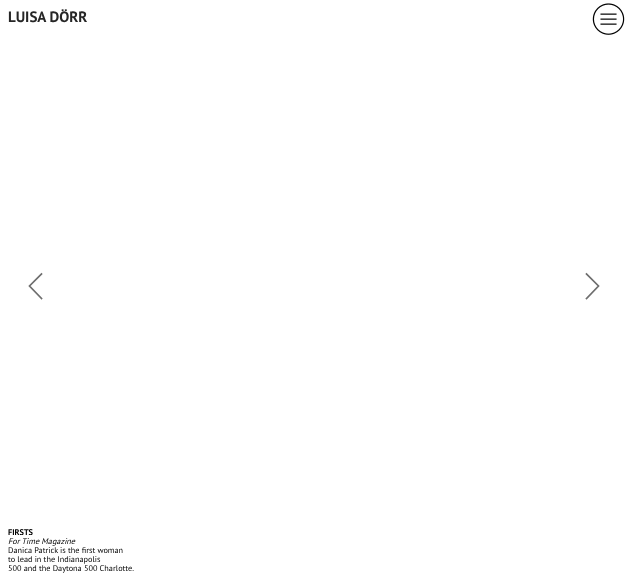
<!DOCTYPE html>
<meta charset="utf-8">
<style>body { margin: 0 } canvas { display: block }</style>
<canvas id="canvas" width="628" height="573"></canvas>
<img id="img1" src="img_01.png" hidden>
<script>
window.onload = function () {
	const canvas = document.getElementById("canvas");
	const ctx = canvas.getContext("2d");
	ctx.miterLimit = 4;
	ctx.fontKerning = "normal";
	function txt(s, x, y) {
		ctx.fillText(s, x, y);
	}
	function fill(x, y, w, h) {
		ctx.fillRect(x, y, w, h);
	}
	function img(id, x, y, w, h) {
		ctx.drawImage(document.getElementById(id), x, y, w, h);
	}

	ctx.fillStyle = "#FFFFFF";
	fill(0, 0, 628, 573);
	ctx.beginPath();
	ctx.moveTo(41.5, 298.5);
	ctx.lineTo(29.5, 286);
	ctx.lineTo(41.5, 274);
	ctx.strokeStyle = "#6E6E6E";
	ctx.lineWidth = 1.7;
	ctx.lineCap = "square";
	ctx.stroke();
	ctx.beginPath();
	ctx.moveTo(586.5, 298.5);
	ctx.lineTo(598.5, 286);
	ctx.lineTo(586.5, 274);
	ctx.stroke();
	img("img1", 592, 3, 33, 32);
	ctx.font = "bold 15px PT Sans";
	ctx.fillStyle = "#262626";
	txt("LUISA DÖRR", 8, 22);
	ctx.font = "bold 8.25px PT Sans";
	ctx.fillStyle = "#000000";
	txt("FIRSTS", 8, 535);
	ctx.font = "italic 8.25px PT Sans";
	txt("For Time Magazine", 8, 544);
	ctx.font = "8.25px PT Sans";
	txt("Danica Patrick is the first woman", 8, 553);
	txt("to lead in the Indianapolis", 8, 562);
	txt("500 and the Daytona 500 Charlotte.", 8, 571);
};
</script>
